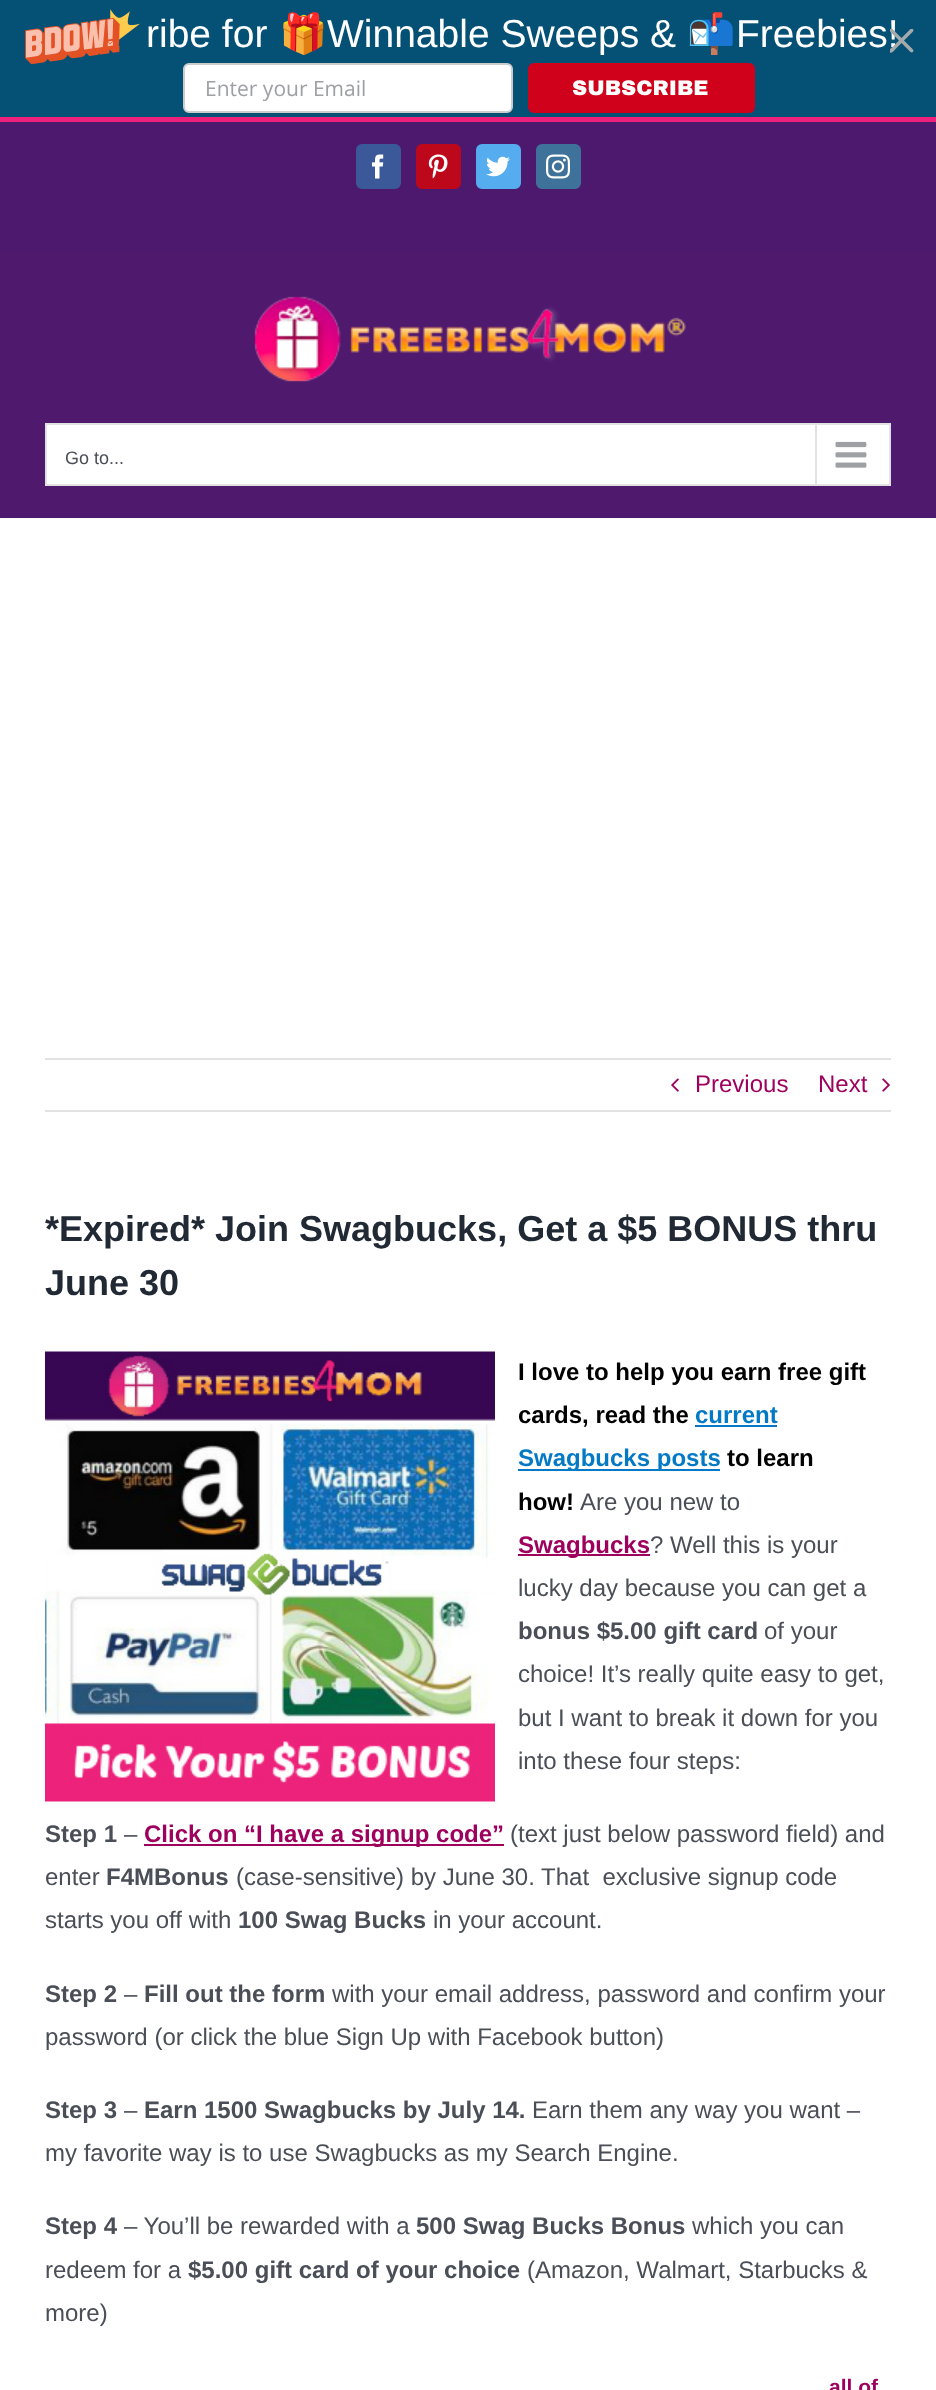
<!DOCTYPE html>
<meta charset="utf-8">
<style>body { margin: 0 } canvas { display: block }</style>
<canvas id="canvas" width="936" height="2390"></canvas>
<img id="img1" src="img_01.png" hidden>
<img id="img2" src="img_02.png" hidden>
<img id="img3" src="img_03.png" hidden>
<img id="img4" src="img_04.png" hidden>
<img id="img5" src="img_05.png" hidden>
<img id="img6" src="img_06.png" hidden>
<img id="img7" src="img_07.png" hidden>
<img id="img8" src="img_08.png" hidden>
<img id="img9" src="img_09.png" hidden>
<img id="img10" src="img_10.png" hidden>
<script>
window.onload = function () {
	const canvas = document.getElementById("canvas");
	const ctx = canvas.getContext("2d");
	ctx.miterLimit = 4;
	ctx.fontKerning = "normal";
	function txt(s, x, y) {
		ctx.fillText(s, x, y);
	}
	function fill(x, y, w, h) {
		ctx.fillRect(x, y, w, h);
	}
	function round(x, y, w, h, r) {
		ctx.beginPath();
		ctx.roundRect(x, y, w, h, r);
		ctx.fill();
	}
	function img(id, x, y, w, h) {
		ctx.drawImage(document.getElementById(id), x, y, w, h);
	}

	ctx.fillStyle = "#FFFFFF";
	fill(0, 0, 936, 2390);
	ctx.fillStyle = "#055075";
	fill(0, 0, 936, 117);
	img("img1", 25, 9, 115, 56);
	ctx.fillStyle = "#FFFFFF";
	ctx.beginPath();
	ctx.roundRect(184, 64, 328, 48, 5);
	ctx.fill();
	ctx.strokeStyle = "#CCCCCC";
	ctx.lineWidth = 2;
	ctx.stroke();
	ctx.fillStyle = "#D0021B";
	round(528, 63, 227, 50, 6);
	ctx.fillStyle = "#4D196E";
	fill(0, 122, 936, 129);
	ctx.fillStyle = "#ED217C";
	fill(0, 117, 936, 5);
	ctx.fillStyle = "#3B5998";
	ctx.beginPath();
	ctx.roundRect(357, 145, 43, 43, 5);
	ctx.fill();
	ctx.strokeStyle = "#3B5998";
	ctx.stroke();
	img("img2", 372, 154, 12, 25);
	ctx.fillStyle = "#BD081C";
	ctx.beginPath();
	ctx.roundRect(417, 145, 43, 43, 5);
	ctx.fill();
	ctx.strokeStyle = "#BD081C";
	ctx.stroke();
	img("img3", 428, 154, 20, 25);
	ctx.fillStyle = "#55ACEE";
	ctx.beginPath();
	ctx.roundRect(477, 145, 43, 43, 5);
	ctx.fill();
	ctx.strokeStyle = "#55ACEE";
	ctx.stroke();
	img("img4", 486, 156, 24, 21);
	ctx.fillStyle = "#3F729B";
	ctx.beginPath();
	ctx.roundRect(537, 145, 43, 43, 5);
	ctx.fill();
	ctx.strokeStyle = "#3F729B";
	ctx.stroke();
	img("img5", 546, 154, 24, 25);
	ctx.fillStyle = "#4F196E";
	fill(0, 251, 936, 265);
	ctx.fillStyle = "#4D196E";
	fill(0, 516, 936, 2);
	img("img6", 254, 296, 432, 86);
	ctx.fillStyle = "#FFFFFF";
	ctx.beginPath();
	ctx.rect(46, 424, 844, 61);
	ctx.fill();
	ctx.strokeStyle = "#E2E2E2";
	ctx.stroke();
	ctx.fillStyle = "#E2E2E2";
	fill(815, 425, 2, 60);
	img("img7", 835, 441, 32, 27);
	fill(45, 1058, 846, 2);
	fill(45, 1110, 846, 2);
	img("img8", 671, 1078, 8, 14);
	img("img9", 882, 1078, 8, 14);
	img("img10", 45, 1351, 450, 451);
	ctx.fillStyle = "#047AC6";
	fill(695, 1425, 82, 2);
	fill(518, 1469, 202, 2);
	ctx.fillStyle = "#9E005D";
	fill(518, 1554, 132, 2);
	fill(144, 1844, 360, 2);
	ctx.font = "39px Liberation Sans";
	ctx.fillStyle = "#FFFFFF";
	txt("ribe for", 146, 47);
	ctx.font = "39px Noto Color Emoji";
	txt("🎁", 279, 47);
	ctx.font = "39px Liberation Sans";
	txt("Winnable Sweeps &", 327, 47);
	ctx.font = "39px Noto Color Emoji";
	txt("📬", 687, 47);
	ctx.font = "39px Liberation Sans";
	txt("Freebies!", 736, 47);
	ctx.save();
	ctx.beginPath();
	ctx.rect(890, 29, 24, 24);
	ctx.clip();
	ctx.fillStyle = "#A4A9AC";
	ctx.beginPath();
	ctx.moveTo(901.5, 38);
	ctx.lineTo(910.5, 29);
	ctx.bezierCurveTo(911.5, 28.5, 912, 28.5, 913, 29);
	ctx.bezierCurveTo(913.5, 30, 913.5, 30.5, 913, 31.5);
	ctx.lineTo(904, 40.5);
	ctx.lineTo(913, 49.5);
	ctx.bezierCurveTo(913.5, 50.5, 913.5, 51, 913, 52);
	ctx.bezierCurveTo(912, 52.5, 911.5, 52.5, 910.5, 52);
	ctx.lineTo(901.5, 43);
	ctx.lineTo(895.5, 49);
	ctx.bezierCurveTo(894.5, 50, 891.5, 54.5, 889.5, 52);
	ctx.bezierCurveTo(888, 50, 892, 47.5, 893, 46.5);
	ctx.lineTo(899, 40.5);
	ctx.lineTo(890, 31.5);
	ctx.bezierCurveTo(889.5, 30.5, 889.5, 30, 890, 29);
	ctx.bezierCurveTo(891, 28.5, 891.5, 28.5, 892.5, 29);
	ctx.closePath();
	ctx.fill();
	ctx.restore();
	ctx.font = "21px Open Sans";
	ctx.fillStyle = "#9EA0A4";
	txt("Enter your Email", 205, 96);
	ctx.font = "900 21px Archivo Black";
	ctx.fillStyle = "#FFFFFF";
	txt("SUBSCRIBE", 572, 95);
	ctx.font = "18px Liberation Sans";
	ctx.fillStyle = "#4A4E57";
	txt("Go to...", 65, 464);
	ctx.font = "24px Liberation Sans";
	ctx.fillStyle = "#9E005D";
	txt("Previous", 695, 1092);
	txt("Next", 818, 1092);
	ctx.font = "bold 36px Liberation Sans";
	ctx.fillStyle = "#212934";
	txt("*Expired* Join Swagbucks, Get a $5 BONUS thru", 45, 1241);
	txt("June 30", 45, 1295);
	ctx.font = "bold 24px Liberation Sans";
	ctx.fillStyle = "#000000";
	txt("I love to help you earn free gift", 518, 1380);
	txt("cards, read the", 518, 1423);
	ctx.fillStyle = "#047AC6";
	txt("current", 695, 1423);
	txt("Swagbucks posts", 518, 1466);
	ctx.fillStyle = "#000000";
	txt("to learn", 727, 1466);
	txt("how!", 518, 1510);
	ctx.font = "24px Liberation Sans";
	ctx.fillStyle = "#4A4E57";
	txt("Are you new to", 580, 1510);
	ctx.font = "bold 24px Liberation Sans";
	ctx.fillStyle = "#9E005D";
	txt("Swagbucks", 518, 1553);
	ctx.font = "24px Liberation Sans";
	ctx.fillStyle = "#4A4E57";
	txt("? Well this is your", 650, 1553);
	txt("lucky day because you can get a", 518, 1596);
	ctx.font = "bold 24px Liberation Sans";
	txt("bonus $5.00 gift card", 518, 1639);
	ctx.font = "24px Liberation Sans";
	txt("of your", 764, 1639);
	txt("choice! It’s really quite easy to get,", 518, 1682);
	txt("but I want to break it down for you", 518, 1726);
	txt("into these four steps:", 518, 1769);
	ctx.font = "bold 24px Liberation Sans";
	txt("Step 1", 45, 1842);
	ctx.font = "24px Liberation Sans";
	txt("–", 124, 1842);
	ctx.font = "bold 24px Liberation Sans";
	ctx.fillStyle = "#9E005D";
	txt("Click on “I have a signup code”", 144, 1842);
	ctx.font = "24px Liberation Sans";
	ctx.fillStyle = "#4A4E57";
	txt("(text just below password field) and", 510, 1842);
	txt("enter", 45, 1885);
	ctx.font = "bold 24px Liberation Sans";
	txt("F4MBonus", 106, 1885);
	ctx.font = "24px Liberation Sans";
	txt("(case-sensitive) by June 30. That  exclusive signup code", 236, 1885);
	txt("starts you off with", 45, 1928);
	ctx.font = "bold 24px Liberation Sans";
	txt("100 Swag Bucks", 238, 1928);
	ctx.font = "24px Liberation Sans";
	txt("in your account.", 433, 1928);
	ctx.font = "bold 24px Liberation Sans";
	txt("Step 2", 45, 2002);
	ctx.font = "24px Liberation Sans";
	txt("–", 124, 2002);
	ctx.font = "bold 24px Liberation Sans";
	txt("Fill out the form", 144, 2002);
	ctx.font = "24px Liberation Sans";
	txt("with your email address, password and confirm your", 332, 2002);
	txt("password (or click the blue Sign Up with Facebook button)", 45, 2045);
	ctx.font = "bold 24px Liberation Sans";
	txt("Step 3", 45, 2118);
	ctx.font = "24px Liberation Sans";
	txt("–", 124, 2118);
	ctx.font = "bold 24px Liberation Sans";
	txt("Earn 1500 Swagbucks by July 14.", 144, 2118);
	ctx.font = "24px Liberation Sans";
	txt("Earn them any way you want –", 532, 2118);
	txt("my favorite way is to use Swagbucks as my Search Engine.", 45, 2161);
	ctx.font = "bold 24px Liberation Sans";
	txt("Step 4", 45, 2234);
	ctx.font = "24px Liberation Sans";
	txt("– You’ll be rewarded with a", 124, 2234);
	ctx.font = "bold 24px Liberation Sans";
	txt("500 Swag Bucks Bonus", 416, 2234);
	ctx.font = "24px Liberation Sans";
	txt("which you can", 692, 2234);
	txt("redeem for a", 45, 2278);
	ctx.font = "bold 24px Liberation Sans";
	txt("$5.00 gift card of your choice", 188, 2278);
	ctx.font = "24px Liberation Sans";
	txt("(Amazon, Walmart, Starbucks &", 527, 2278);
	txt("more)", 45, 2321);
	ctx.font = "bold 21px Liberation Sans";
	ctx.fillStyle = "#9E005D";
	txt("all of", 829, 2394);
};
</script>
